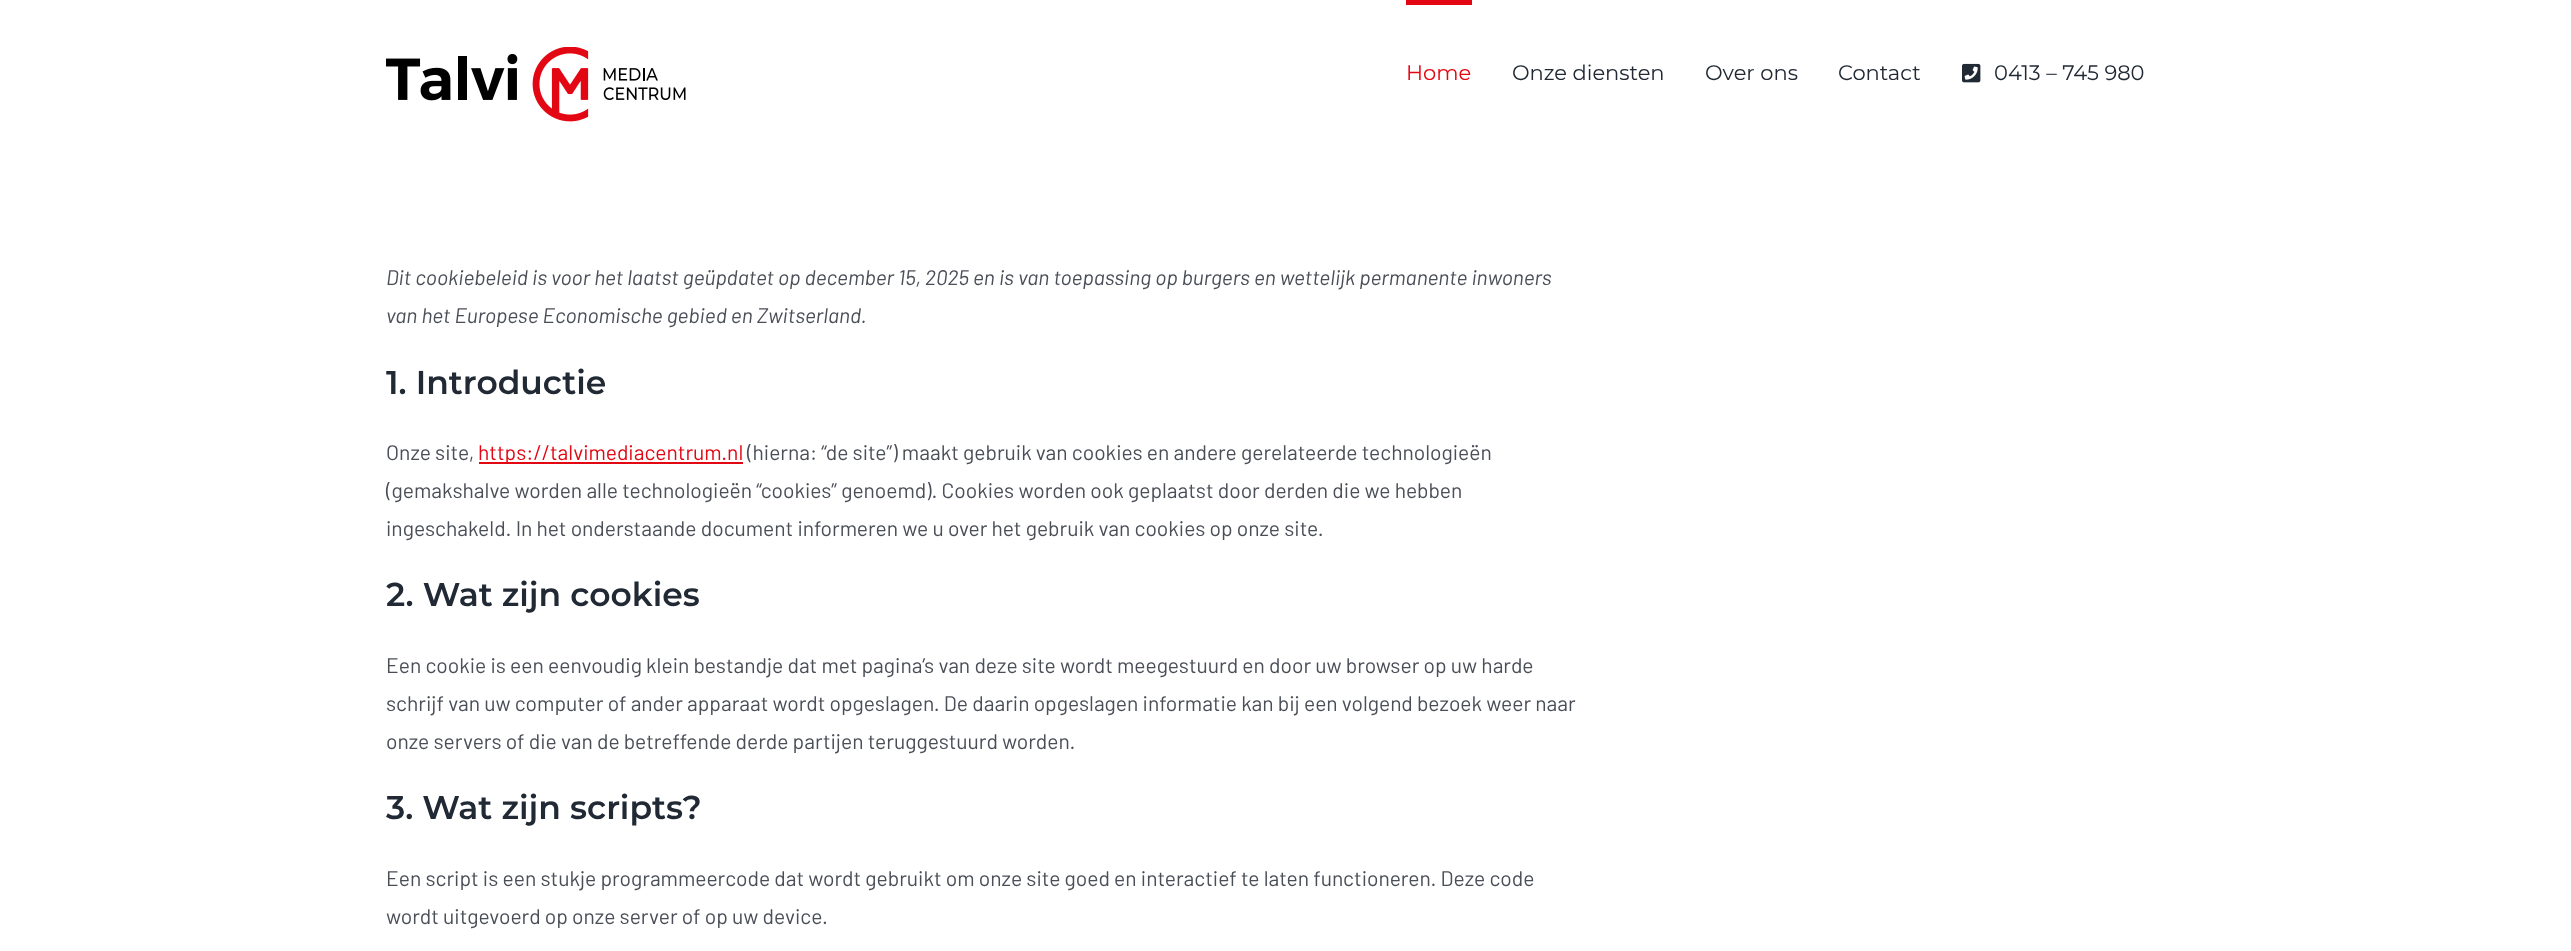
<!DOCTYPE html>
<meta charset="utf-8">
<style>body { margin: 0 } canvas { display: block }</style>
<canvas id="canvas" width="2571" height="951"></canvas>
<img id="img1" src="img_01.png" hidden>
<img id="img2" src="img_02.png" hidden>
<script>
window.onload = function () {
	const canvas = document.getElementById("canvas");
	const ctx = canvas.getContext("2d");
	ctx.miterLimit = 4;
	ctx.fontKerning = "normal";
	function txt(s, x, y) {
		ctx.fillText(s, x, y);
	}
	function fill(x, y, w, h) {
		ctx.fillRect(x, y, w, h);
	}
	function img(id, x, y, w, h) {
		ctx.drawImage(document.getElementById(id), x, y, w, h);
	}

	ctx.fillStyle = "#FFFFFF";
	fill(0, 0, 2571, 951);
	img("img1", 386, 47, 300, 75);
	ctx.fillStyle = "#E30613";
	fill(1406, 0, 66, 5);
	img("img2", 1962, 63, 19, 20);
	fill(479, 462, 264, 2);
	ctx.font = "21px Montserrat";
	txt("Home", 1406, 80);
	ctx.fillStyle = "#212934";
	txt("Onze diensten", 1512, 80);
	txt("Over ons", 1705, 80);
	txt("Contact", 1838, 80);
	txt("0413 – 745 980", 1994, 80);
	ctx.font = "italic 21px Barlow";
	ctx.fillStyle = "#4A4E57";
	txt("Dit cookiebeleid is voor het laatst geüpdatet op december 15, 2025 en is van toepassing op burgers en wettelijk permanente inwoners", 386, 285);
	txt("van het Europese Economische gebied en Zwitserland.", 386, 323);
	ctx.font = "600 33px Montserrat";
	ctx.fillStyle = "#212934";
	txt("1. Introductie", 386, 394);
	ctx.font = "21px Barlow";
	ctx.fillStyle = "#4A4E57";
	txt("Onze site,", 386, 460);
	ctx.fillStyle = "#E30613";
	txt("https://talvimediacentrum.nl", 478, 460);
	ctx.fillStyle = "#4A4E57";
	txt("(hierna: “de site”) maakt gebruik van cookies en andere gerelateerde technologieën", 747, 460);
	txt("(gemakshalve worden alle technologieën “cookies” genoemd). Cookies worden ook geplaatst door derden die we hebben", 386, 498);
	txt("ingeschakeld. In het onderstaande document informeren we u over het gebruik van cookies op onze site.", 386, 536);
	ctx.font = "600 33px Montserrat";
	ctx.fillStyle = "#212934";
	txt("2. Wat zijn cookies", 386, 606);
	ctx.font = "21px Barlow";
	ctx.fillStyle = "#4A4E57";
	txt("Een cookie is een eenvoudig klein bestandje dat met pagina’s van deze site wordt meegestuurd en door uw browser op uw harde", 386, 673);
	txt("schrijf van uw computer of ander apparaat wordt opgeslagen. De daarin opgeslagen informatie kan bij een volgend bezoek weer naar", 386, 711);
	txt("onze servers of die van de betreffende derde partijen teruggestuurd worden.", 386, 749);
	ctx.font = "600 33px Montserrat";
	ctx.fillStyle = "#212934";
	txt("3. Wat zijn scripts?", 386, 819);
	ctx.font = "21px Barlow";
	ctx.fillStyle = "#4A4E57";
	txt("Een script is een stukje programmeercode dat wordt gebruikt om onze site goed en interactief te laten functioneren. Deze code", 386, 886);
	txt("wordt uitgevoerd op onze server of op uw device.", 386, 924);
};
</script>
